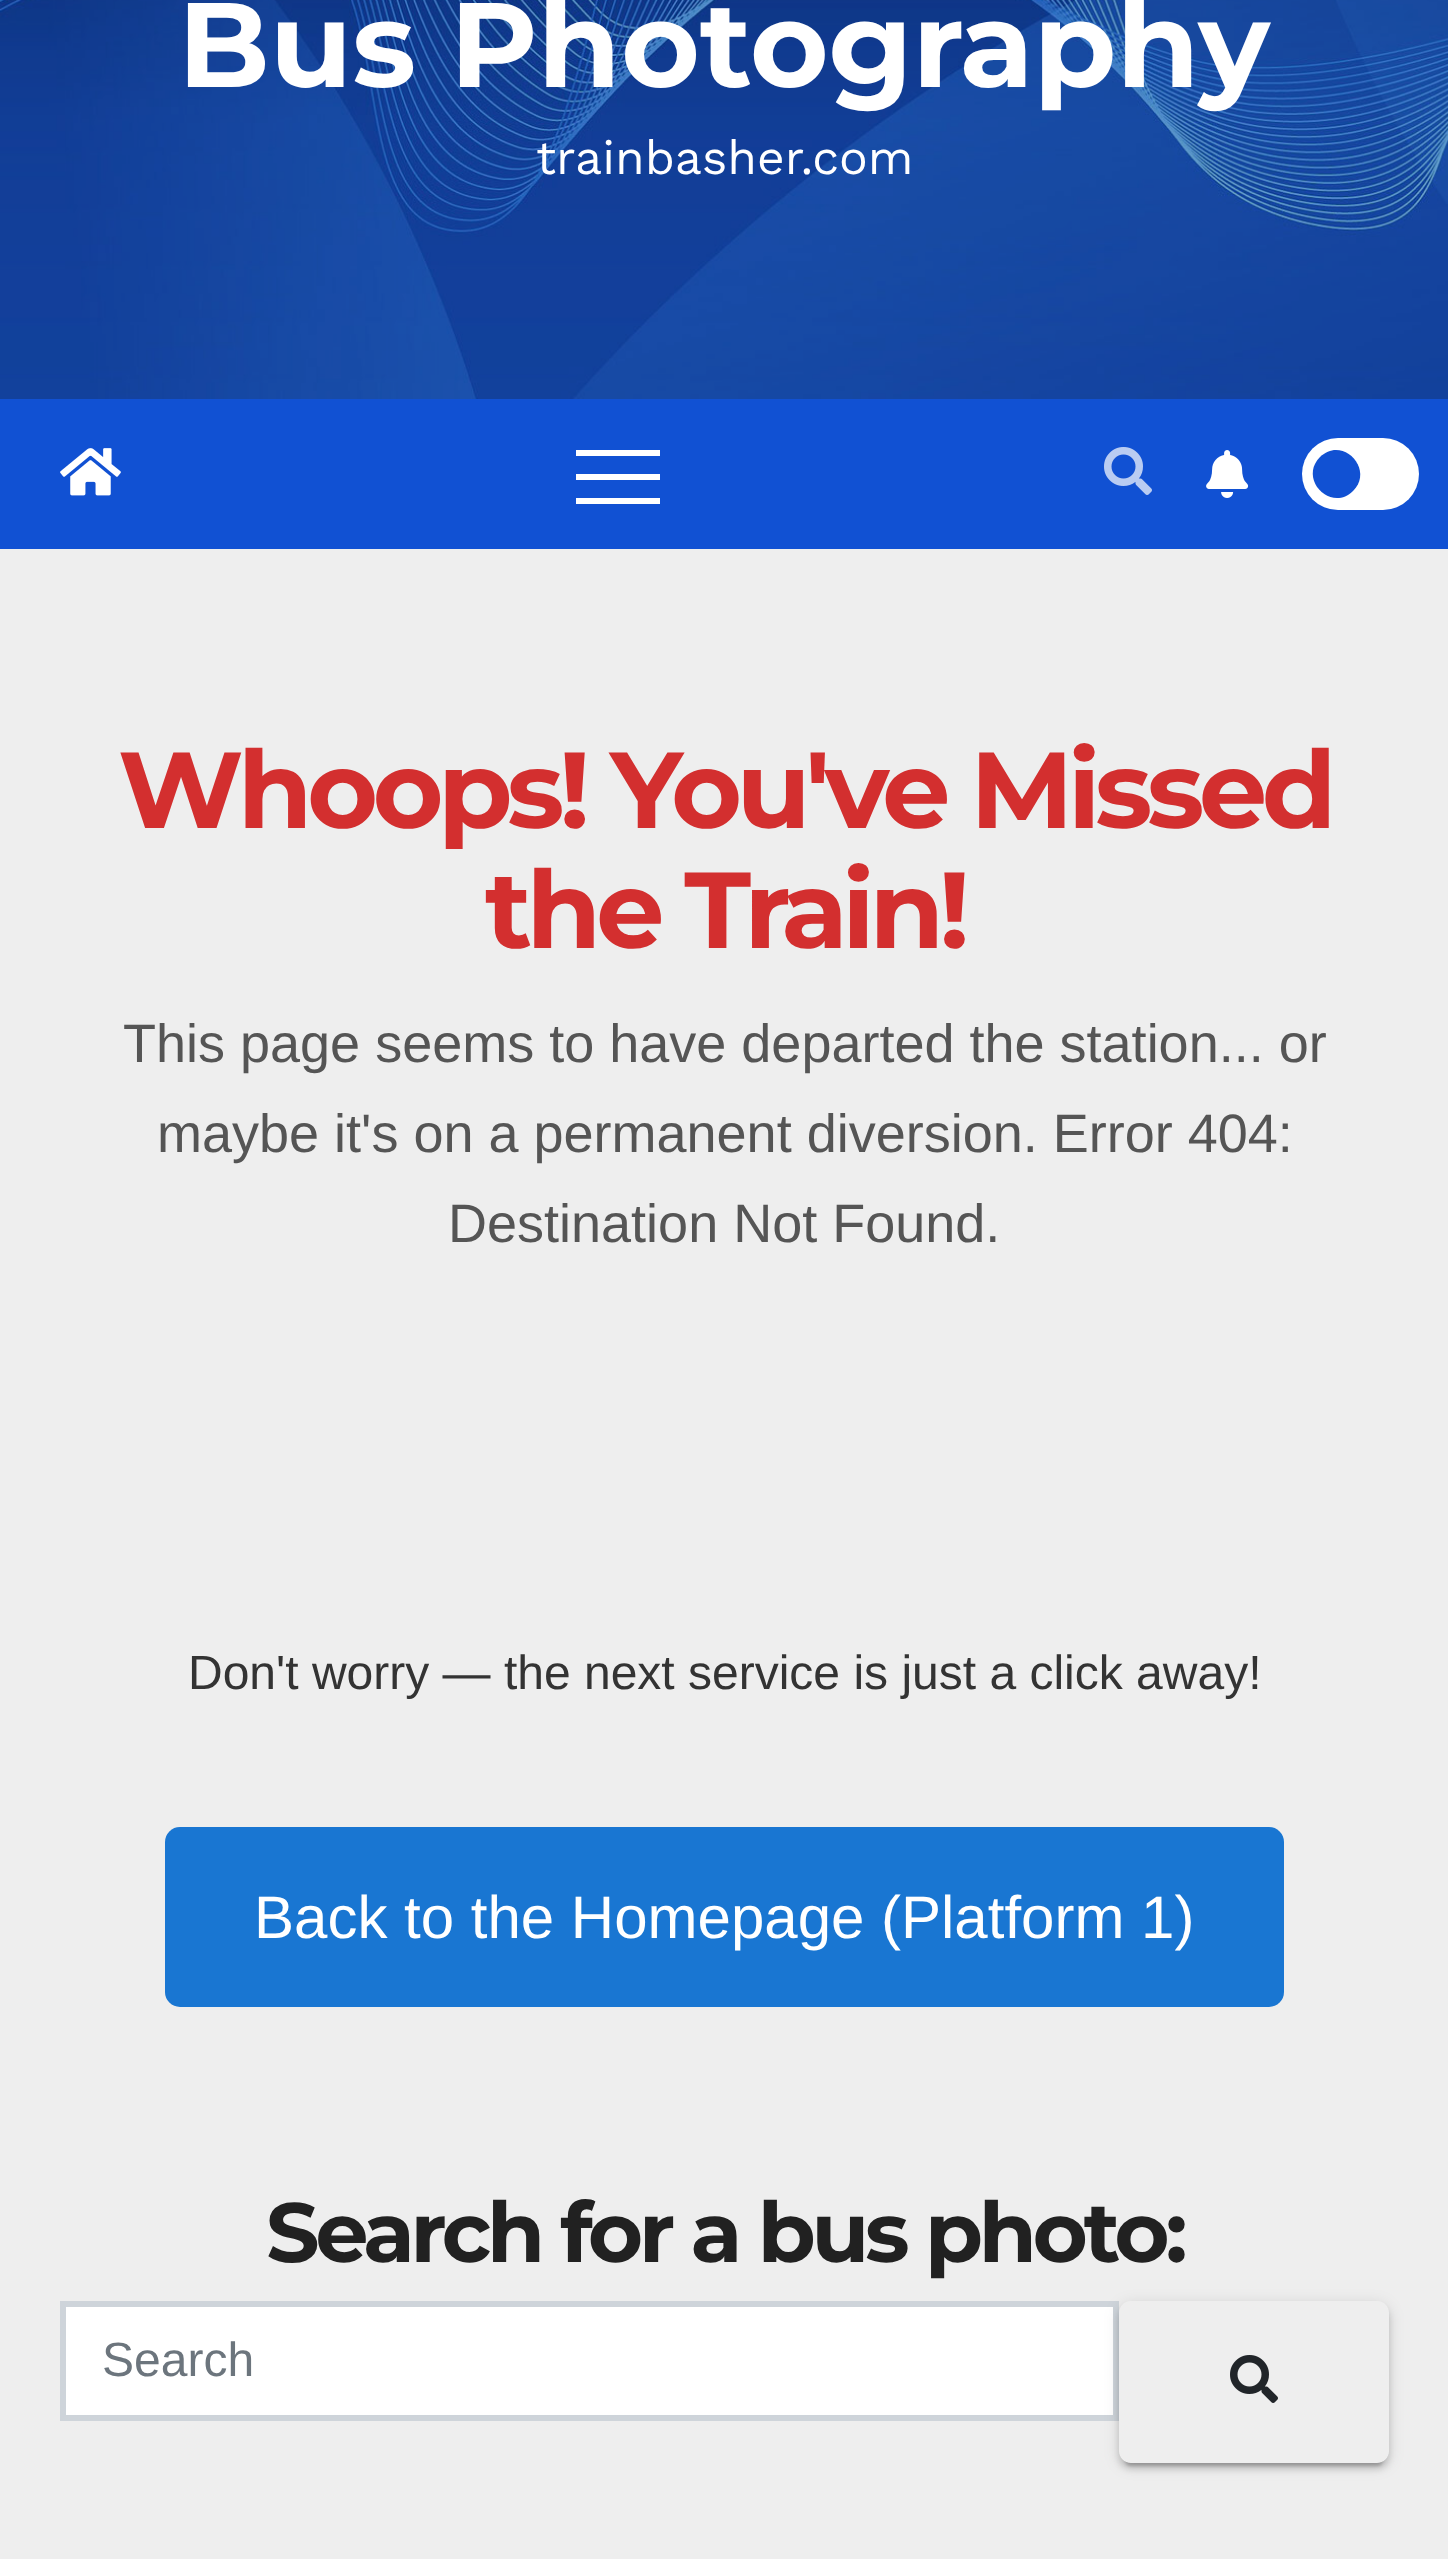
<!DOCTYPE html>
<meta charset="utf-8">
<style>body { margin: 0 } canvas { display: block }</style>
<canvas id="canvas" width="1448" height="2559"></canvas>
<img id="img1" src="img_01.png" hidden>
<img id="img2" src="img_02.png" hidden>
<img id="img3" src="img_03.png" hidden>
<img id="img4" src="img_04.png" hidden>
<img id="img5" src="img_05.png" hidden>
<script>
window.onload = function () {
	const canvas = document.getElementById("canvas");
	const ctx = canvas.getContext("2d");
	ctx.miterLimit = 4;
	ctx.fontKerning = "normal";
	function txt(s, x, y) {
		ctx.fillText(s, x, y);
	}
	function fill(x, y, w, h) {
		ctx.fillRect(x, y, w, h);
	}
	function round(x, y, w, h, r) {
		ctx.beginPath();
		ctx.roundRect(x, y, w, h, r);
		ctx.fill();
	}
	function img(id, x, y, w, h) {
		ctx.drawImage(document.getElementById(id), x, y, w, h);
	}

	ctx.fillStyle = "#EEEEEE";
	fill(0, 0, 1448, 2559);
	img("img1", 0, 0, 1448, 399);
	ctx.fillStyle = "#1151D3";
	fill(0, 399, 1448, 150);
	img("img2", 60, 448, 61, 48);
	ctx.fillStyle = "#FFFFFF";
	fill(576, 450, 84, 6);
	fill(576, 474, 84, 6);
	fill(576, 498, 84, 6);
	img("img3", 1104, 447, 48, 48);
	img("img4", 1206, 450, 43, 48);
	round(1302, 438, 117, 72, 36);
	ctx.fillStyle = "#1151D3";
	ctx.beginPath();
	ctx.moveTo(1320, 457);
	ctx.bezierCurveTo(1342, 435, 1375, 469, 1353, 491);
	ctx.bezierCurveTo(1331, 513, 1298, 479, 1320, 457);
	ctx.closePath();
	ctx.fill();
	ctx.fillStyle = "#1976D2";
	round(165, 1827, 1119, 180, 15);
	ctx.fillStyle = "#FFFFFF";
	ctx.beginPath();
	ctx.rect(63, 2304, 1053, 114);
	ctx.fill();
	ctx.strokeStyle = "#CED4DA";
	ctx.lineWidth = 6;
	ctx.stroke();
	ctx.save();
	ctx.beginPath();
	ctx.moveTo(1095, 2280);
	ctx.lineTo(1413, 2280);
	ctx.lineTo(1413, 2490);
	ctx.lineTo(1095, 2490);
	ctx.closePath();
	ctx.moveTo(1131, 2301);
	ctx.lineTo(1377, 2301);
	ctx.bezierCurveTo(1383.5, 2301, 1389, 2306.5, 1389, 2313);
	ctx.lineTo(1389, 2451);
	ctx.bezierCurveTo(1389, 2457.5, 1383.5, 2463, 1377, 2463);
	ctx.lineTo(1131, 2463);
	ctx.bezierCurveTo(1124.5, 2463, 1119, 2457.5, 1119, 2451);
	ctx.lineTo(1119, 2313);
	ctx.bezierCurveTo(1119, 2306.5, 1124.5, 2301, 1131, 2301);
	ctx.closePath();
	ctx.clip("evenodd");
	ctx.fillStyle = "rgba(0, 0, 0, 0.12)";
	ctx.filter = "blur(7.5px)";
	ctx.beginPath();
	ctx.roundRect(1119, 2304, 270, 162, 12);
	ctx.fill();
	ctx.filter = "none";
	ctx.restore();
	ctx.save();
	ctx.beginPath();
	ctx.moveTo(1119, 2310);
	ctx.lineTo(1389, 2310);
	ctx.lineTo(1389, 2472);
	ctx.lineTo(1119, 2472);
	ctx.closePath();
	ctx.moveTo(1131, 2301);
	ctx.lineTo(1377, 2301);
	ctx.bezierCurveTo(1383.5, 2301, 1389, 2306.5, 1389, 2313);
	ctx.lineTo(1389, 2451);
	ctx.bezierCurveTo(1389, 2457.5, 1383.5, 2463, 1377, 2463);
	ctx.lineTo(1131, 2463);
	ctx.bezierCurveTo(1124.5, 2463, 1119, 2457.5, 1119, 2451);
	ctx.lineTo(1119, 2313);
	ctx.bezierCurveTo(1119, 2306.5, 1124.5, 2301, 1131, 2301);
	ctx.closePath();
	ctx.clip("evenodd");
	ctx.fillStyle = "rgba(0, 0, 0, 0.2)";
	ctx.filter = "blur(1.5px)";
	ctx.beginPath();
	ctx.roundRect(1125, 2316, 258, 150, 6);
	ctx.fill();
	ctx.filter = "none";
	ctx.restore();
	ctx.save();
	ctx.beginPath();
	ctx.moveTo(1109, 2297);
	ctx.lineTo(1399, 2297);
	ctx.lineTo(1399, 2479);
	ctx.lineTo(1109, 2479);
	ctx.closePath();
	ctx.moveTo(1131, 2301);
	ctx.lineTo(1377, 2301);
	ctx.bezierCurveTo(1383.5, 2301, 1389, 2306.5, 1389, 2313);
	ctx.lineTo(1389, 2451);
	ctx.bezierCurveTo(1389, 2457.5, 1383.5, 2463, 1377, 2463);
	ctx.lineTo(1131, 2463);
	ctx.bezierCurveTo(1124.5, 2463, 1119, 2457.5, 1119, 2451);
	ctx.lineTo(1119, 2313);
	ctx.bezierCurveTo(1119, 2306.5, 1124.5, 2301, 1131, 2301);
	ctx.closePath();
	ctx.clip("evenodd");
	ctx.fillStyle = "rgba(0, 0, 0, 0.14)";
	ctx.filter = "blur(3px)";
	ctx.beginPath();
	ctx.roundRect(1119, 2307, 270, 162, 12);
	ctx.fill();
	ctx.filter = "none";
	ctx.restore();
	img("img5", 1230, 2355, 48, 48);
	ctx.font = "bold 120px Montserrat";
	txt("Bus Photography", 178, 87);
	ctx.font = "48px Work Sans";
	txt("trainbasher.com", 536, 174);
	ctx.letterSpacing = "-5.4px";
	ctx.font = "bold 108px Montserrat";
	ctx.fillStyle = "#D32F2F";
	txt("Whoops! You've Missed", 118, 828);
	txt("the Train!", 485, 948);
	ctx.letterSpacing = "0px";
	ctx.font = "54px Liberation Sans";
	ctx.fillStyle = "#555555";
	txt("This page seems to have departed the station... or", 123, 1062);
	txt("maybe it's on a permanent diversion. Error 404:", 157, 1152);
	txt("Destination Not Found.", 448, 1242);
	ctx.font = "48px Liberation Sans";
	ctx.fillStyle = "#333333";
	txt("Don't worry — the next service is just a click away!", 188, 1689);
	ctx.font = "60px Liberation Sans";
	ctx.fillStyle = "#FFFFFF";
	txt("Back to the Homepage (Platform 1)", 254, 1938);
	ctx.letterSpacing = "-4.2px";
	ctx.font = "bold 84px Montserrat";
	ctx.fillStyle = "#212121";
	txt("Search for a bus photo:", 266, 2262);
	ctx.letterSpacing = "0px";
	ctx.font = "48px Liberation Sans";
	ctx.fillStyle = "#6C757D";
	txt("Search", 102, 2376);
};
</script>
